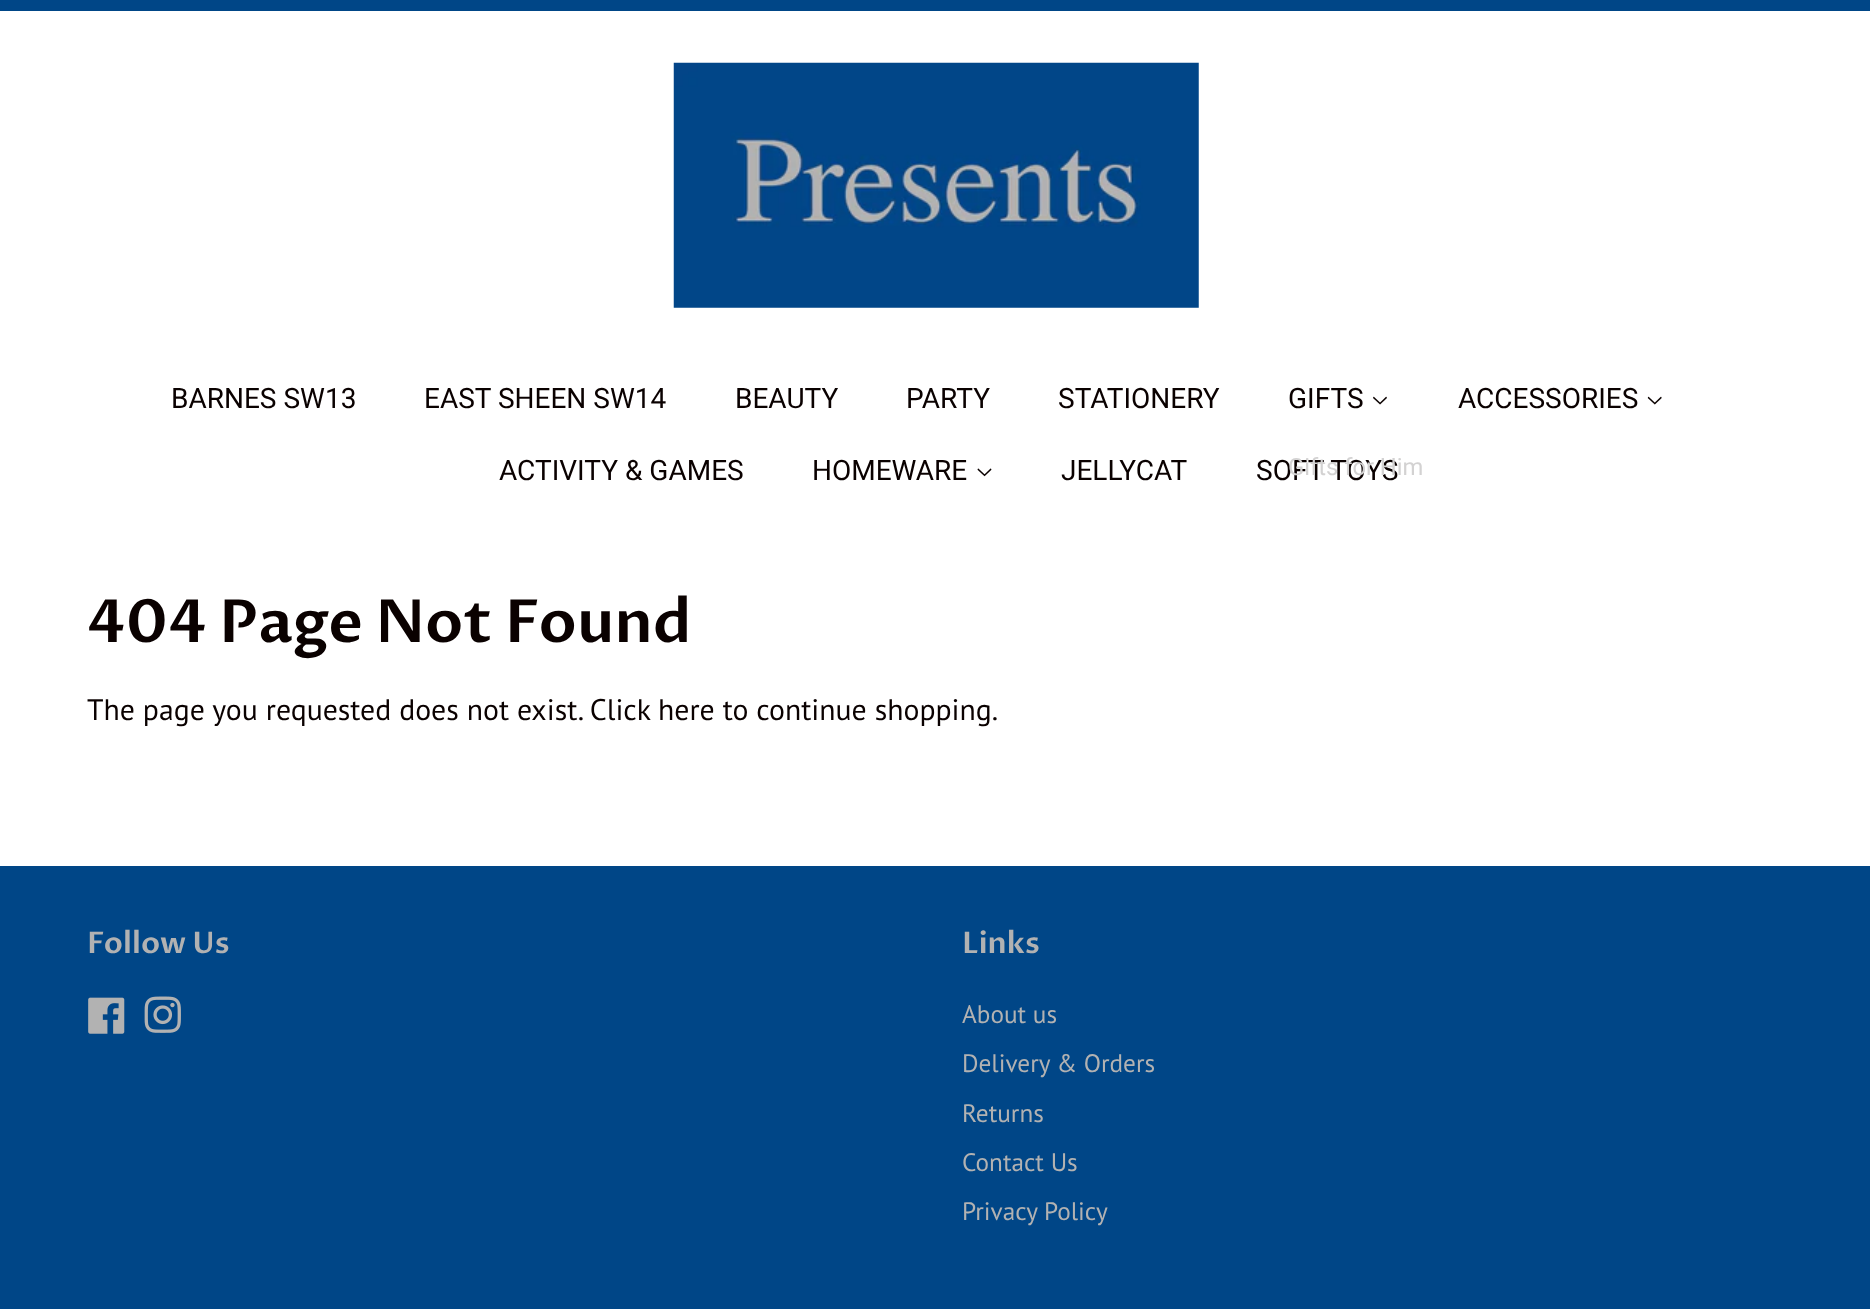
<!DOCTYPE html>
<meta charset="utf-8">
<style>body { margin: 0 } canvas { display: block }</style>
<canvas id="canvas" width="1870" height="1309"></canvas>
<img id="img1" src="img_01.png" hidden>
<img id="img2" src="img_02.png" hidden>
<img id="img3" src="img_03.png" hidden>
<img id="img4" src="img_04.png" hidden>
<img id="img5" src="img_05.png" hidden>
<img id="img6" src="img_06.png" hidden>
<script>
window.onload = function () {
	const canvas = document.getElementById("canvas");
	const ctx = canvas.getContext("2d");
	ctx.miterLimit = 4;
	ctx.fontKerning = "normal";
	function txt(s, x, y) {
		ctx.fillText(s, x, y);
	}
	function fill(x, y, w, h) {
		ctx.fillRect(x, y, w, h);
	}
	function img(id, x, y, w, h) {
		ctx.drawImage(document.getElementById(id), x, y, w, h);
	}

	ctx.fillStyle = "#FFFFFF";
	fill(0, 0, 1870, 1309);
	ctx.fillStyle = "#004687";
	fill(0, 0, 1870, 11);
	img("img1", 673, 62, 526, 246);
	img("img2", 1373, 396, 14, 9);
	img("img3", 1647, 396, 15, 9);
	img("img4", 977, 468, 15, 9);
	fill(0, 866, 1870, 443);
	img("img5", 88, 997, 37, 37);
	img("img6", 144, 996, 37, 37);
	ctx.font = "28px Roboto";
	ctx.fillStyle = "#0A0100";
	txt("BARNES SW13", 171, 408);
	txt("EAST SHEEN SW14", 424, 408);
	txt("BEAUTY", 735, 408);
	txt("PARTY", 906, 408);
	txt("STATIONERY", 1058, 408);
	txt("GIFTS", 1288, 408);
	txt("ACCESSORIES", 1458, 408);
	txt("ACTIVITY & GAMES", 499, 480);
	txt("HOMEWARE", 812, 480);
	txt("JELLYCAT", 1061, 480);
	txt("SOFT TOYS", 1256, 480);
	ctx.font = "23.75px Roboto";
	ctx.fillStyle = "#D3D2D2";
	txt("Gifts for Him", 1288, 475);
	ctx.font = "600 59.5px Proza Libre";
	ctx.fillStyle = "#0A0100";
	txt("404 Page Not Found", 87, 642);
	ctx.font = "29.75px PT Sans";
	txt("The page you requested does not exist. Click here to continue shopping.", 87, 720);
	ctx.font = "600 29.75px Proza Libre";
	ctx.fillStyle = "#B2B2B2";
	txt("Follow Us", 87, 953);
	txt("Links", 962, 953);
	ctx.font = "25.25px PT Sans";
	txt("About us", 962, 1023);
	txt("Delivery & Orders", 962, 1072);
	txt("Returns", 962, 1122);
	txt("Contact Us", 962, 1171);
	txt("Privacy Policy", 962, 1220);
};
</script>
